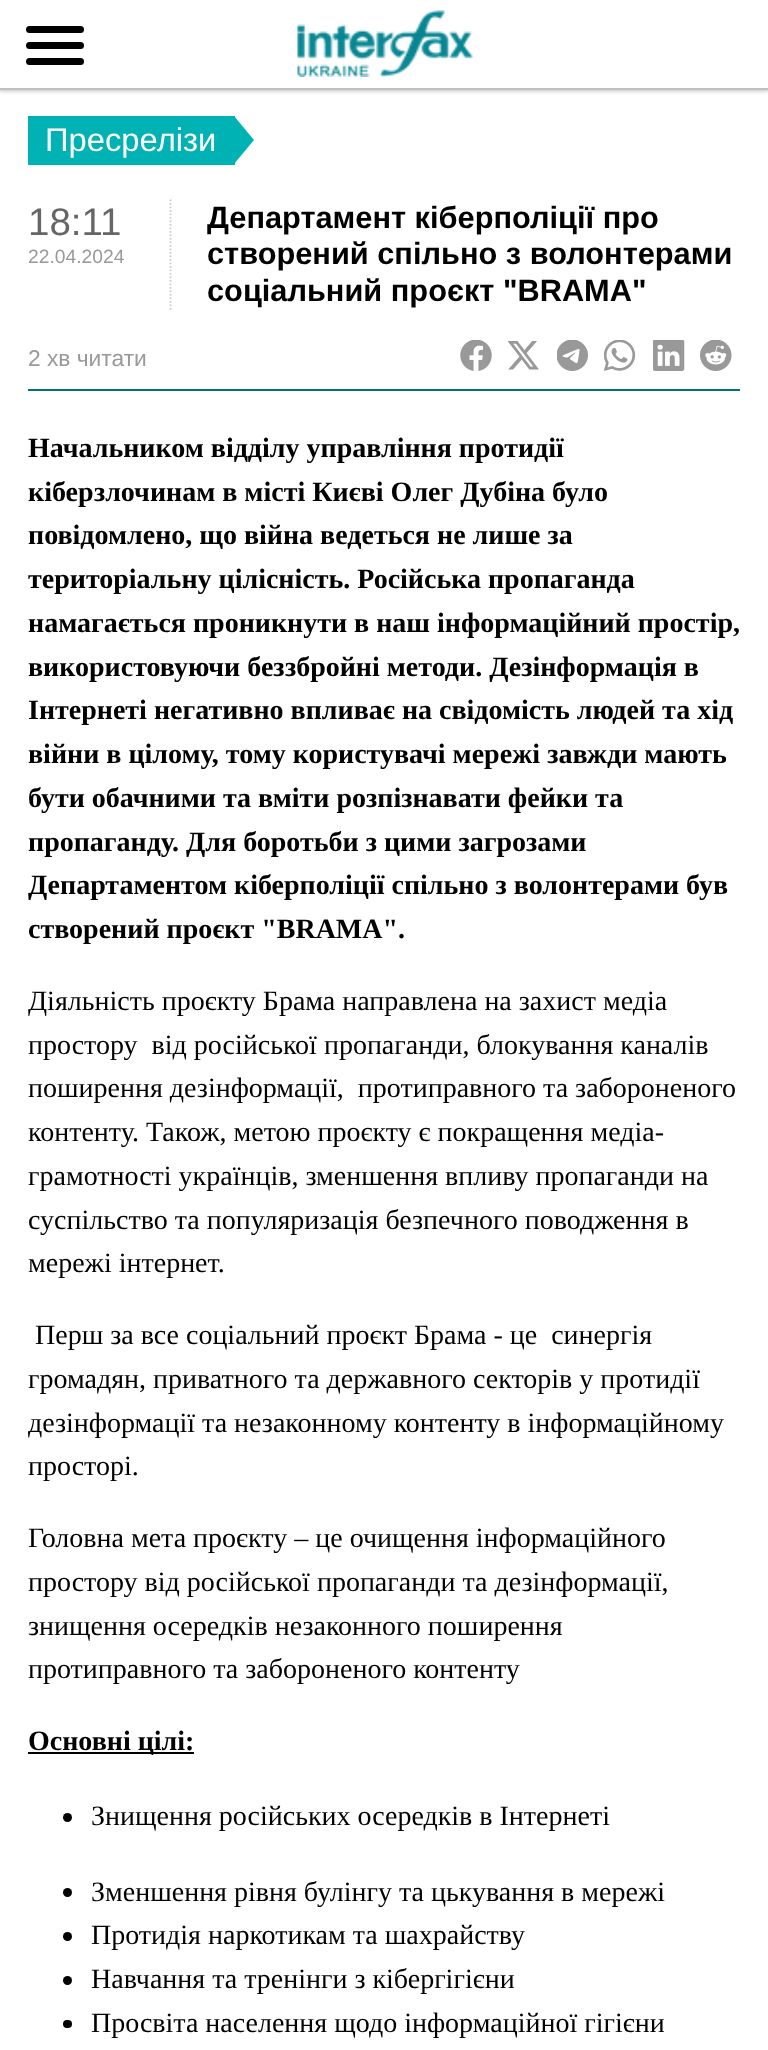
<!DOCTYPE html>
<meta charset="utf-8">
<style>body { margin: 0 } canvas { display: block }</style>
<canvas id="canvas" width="768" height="2050"></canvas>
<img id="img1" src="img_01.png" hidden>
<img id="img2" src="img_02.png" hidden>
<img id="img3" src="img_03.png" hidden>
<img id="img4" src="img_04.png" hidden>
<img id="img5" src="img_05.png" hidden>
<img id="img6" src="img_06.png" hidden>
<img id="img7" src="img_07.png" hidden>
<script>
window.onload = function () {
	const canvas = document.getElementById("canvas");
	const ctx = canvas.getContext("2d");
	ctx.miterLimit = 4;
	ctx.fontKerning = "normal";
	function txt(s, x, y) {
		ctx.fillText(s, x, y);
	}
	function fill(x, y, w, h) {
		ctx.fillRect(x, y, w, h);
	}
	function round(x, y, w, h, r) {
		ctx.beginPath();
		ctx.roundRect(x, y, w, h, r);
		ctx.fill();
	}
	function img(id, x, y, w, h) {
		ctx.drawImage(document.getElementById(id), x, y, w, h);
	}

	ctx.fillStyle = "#FFFFFF";
	fill(0, 0, 768, 2050);
	ctx.save();
	ctx.beginPath();
	ctx.rect(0, 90, 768, 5);
	ctx.clip();
	ctx.fillStyle = "#C0C0C0";
	ctx.filter = "blur(2px)";
	ctx.beginPath();
	ctx.rect(-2, -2, 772, 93);
	ctx.fill();
	ctx.filter = "none";
	ctx.restore();
	ctx.fillStyle = "#C0C0C0";
	fill(0, 88, 768, 2);
	ctx.fillStyle = "#000000";
	round(26, 26, 58, 7, 3.5);
	round(26, 42, 58, 7, 3.5);
	round(26, 58, 58, 7, 3.5);
	img("img1", 297, 10, 176, 67);
	ctx.fillStyle = "#00B2B3";
	fill(28, 116, 207, 49);
	ctx.beginPath();
	ctx.moveTo(234, 164);
	ctx.lineTo(234, 116);
	ctx.lineTo(254, 140);
	ctx.closePath();
	ctx.fill();
	ctx.beginPath();
	ctx.moveTo(170.5, 199.5);
	ctx.lineTo(170.5, 310);
	ctx.strokeStyle = "#CCCCCC";
	ctx.lineWidth = 1.8;
	ctx.setLineDash([1.75, 1.75]);
	ctx.stroke();
	ctx.fillStyle = "#007375";
	fill(28, 389, 712, 2);
	img("img2", 460, 340, 32, 31);
	img("img3", 508, 341, 31, 29);
	img("img4", 557, 340, 31, 31);
	img("img5", 604, 340, 32, 31);
	img("img6", 653, 340, 32, 31);
	img("img7", 700, 340, 32, 31);
	ctx.fillStyle = "#000000";
	fill(28, 1752, 166, 2);
	ctx.beginPath();
	ctx.arc(67.5, 1817.5, 4.5, 0, Math.PI * 2);
	ctx.fill();
	ctx.beginPath();
	ctx.arc(67.5, 1892.5, 4.5, 0, Math.PI * 2);
	ctx.fill();
	ctx.beginPath();
	ctx.arc(67.5, 1936.5, 4.5, 0, Math.PI * 2);
	ctx.fill();
	ctx.beginPath();
	ctx.arc(67.5, 1980.5, 4.5, 0, Math.PI * 2);
	ctx.fill();
	round(63, 2020, 9, 8, 4);
	ctx.font = "32.75px Liberation Sans";
	ctx.fillStyle = "#FFFFFF";
	txt("Пресрелізи", 45, 151);
	ctx.font = "38.5px Liberation Sans";
	ctx.fillStyle = "#666666";
	txt("18:11", 28, 235);
	ctx.font = "19.25px Liberation Sans";
	ctx.fillStyle = "#999999";
	txt("22.04.2024", 28, 263);
	ctx.font = "bold 30.75px Liberation Sans";
	ctx.fillStyle = "#000000";
	txt("Департамент кіберполіції про", 207, 228);
	txt("створений спільно з волонтерами", 207, 264);
	txt("соціальний проєкт \"BRAMA\"", 207, 301);
	ctx.font = "22.75px Liberation Sans";
	ctx.fillStyle = "#999999";
	txt("2 хв читати", 28, 366);
	ctx.font = "bold 28px Liberation Serif";
	ctx.fillStyle = "#000000";
	txt("Начальником відділу управління протидії", 28, 457);
	txt("кіберзлочинам в місті Києві Олег Дубіна було", 28, 501);
	txt("повідомлено, що війна ведеться не лише за", 28, 544);
	txt("територіальну цілісність. Російська пропаганда", 28, 588);
	txt("намагається проникнути в наш інформаційний простір,", 28, 632);
	txt("використовуючи беззбройні методи. Дезінформація в", 28, 676);
	txt("Інтернеті негативно впливає на свідомість людей та хід", 28, 719);
	txt("війни в цілому, тому користувачі мережі завжди мають", 28, 763);
	txt("бути обачними та вміти розпізнавати фейки та", 28, 807);
	txt("пропаганду. Для боротьби з цими загрозами", 28, 851);
	txt("Департаментом кіберполіції спільно з волонтерами був", 28, 894);
	txt("створений проєкт \"BRAMA\".", 28, 938);
	ctx.font = "28px Liberation Serif";
	txt("Діяльність проєкту Брама направлена на захист медіа", 28, 1010);
	txt("простору  від російської пропаганди, блокування каналів", 28, 1054);
	txt("поширення дезінформації,  протиправного та забороненого", 28, 1097);
	txt("контенту. Також, метою проєкту є покращення медіа-", 28, 1141);
	txt("грамотності українців, зменшення впливу пропаганди на", 28, 1185);
	txt("суспільство та популяризація безпечного поводження в", 28, 1229);
	txt("мережі інтернет.", 28, 1272);
	txt("Перш за все соціальний проєкт Брама - це  синергія", 35, 1344);
	txt("громадян, приватного та державного секторів у протидії", 28, 1388);
	txt("дезінформації та незаконному контенту в інформаційному", 28, 1432);
	txt("просторі.", 28, 1475);
	txt("Головна мета проєкту – це очищення інформаційного", 28, 1547);
	txt("простору від російської пропаганди та дезінформації,", 28, 1591);
	txt("знищення осередків незаконного поширення", 28, 1635);
	txt("протиправного та забороненого контенту", 28, 1678);
	ctx.font = "bold 28px Liberation Serif";
	txt("Основні цілі:", 28, 1750);
	ctx.font = "28px Liberation Serif";
	txt("Знищення російських осередків в Інтернеті", 91, 1825);
	txt("Зменшення рівня булінгу та цькування в мережі", 91, 1901);
	txt("Протидія наркотикам та шахрайству", 91, 1944);
	txt("Навчання та тренінги з кібергігієни", 91, 1988);
	txt("Просвіта населення щодо інформаційної гігієни", 91, 2032);
};
</script>
